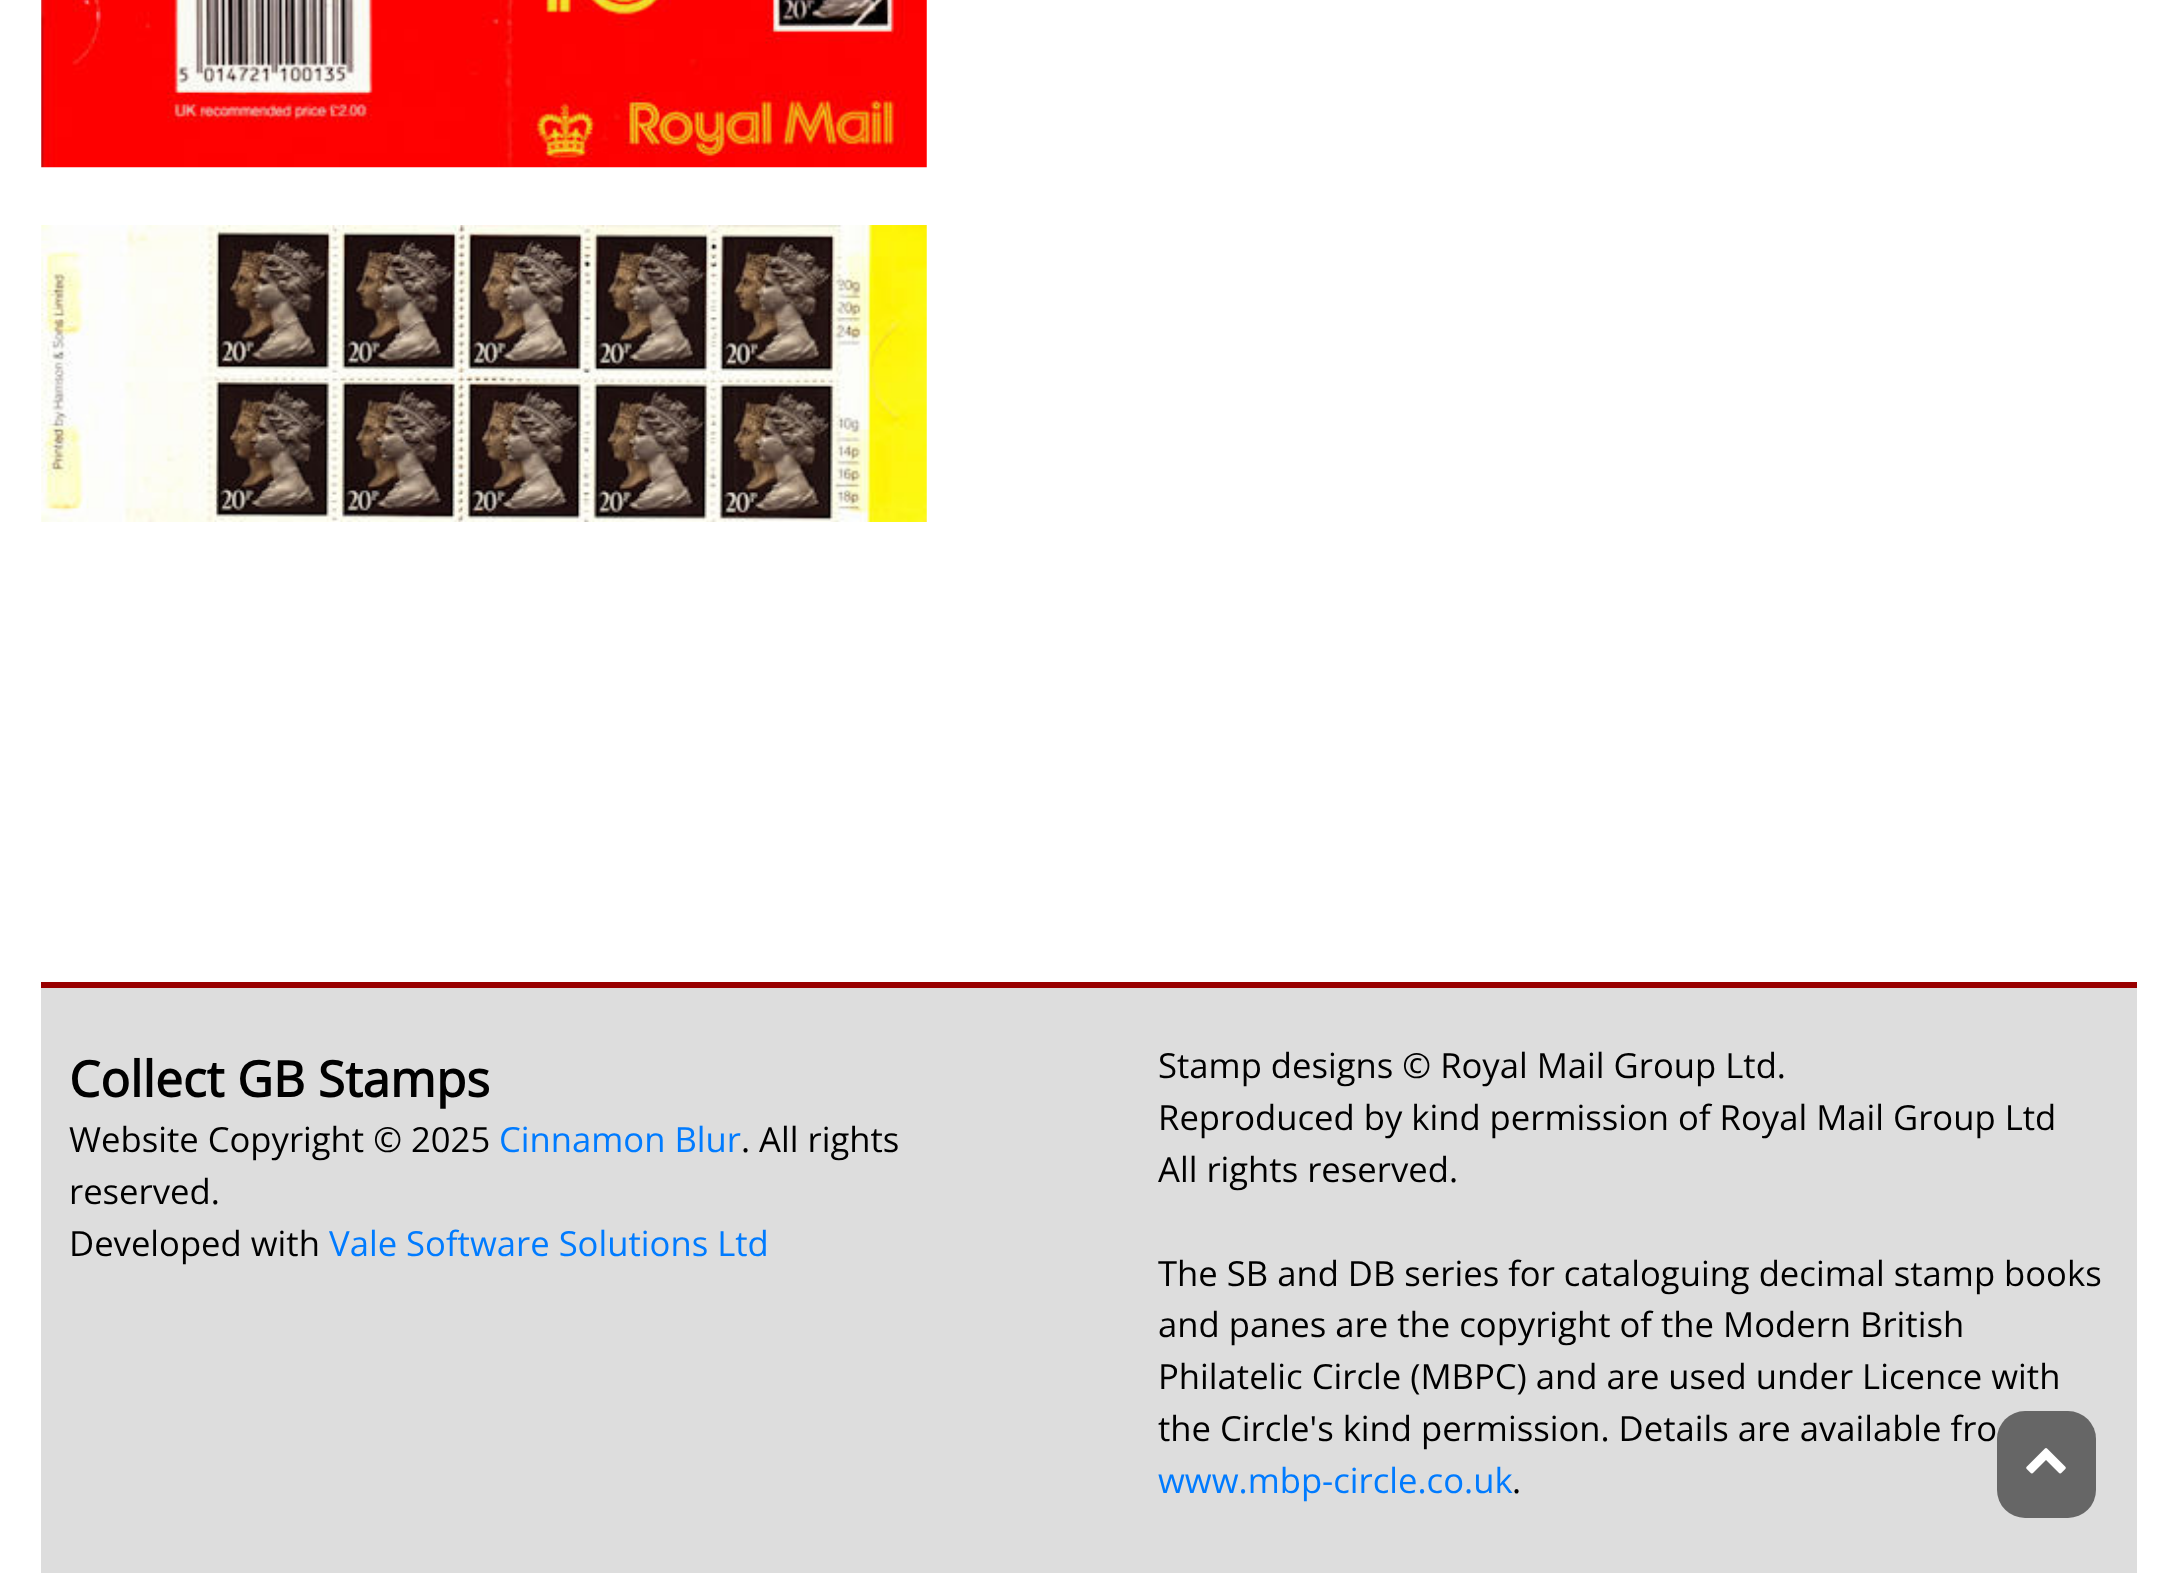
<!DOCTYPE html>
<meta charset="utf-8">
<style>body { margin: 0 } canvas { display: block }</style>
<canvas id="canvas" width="2176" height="1573"></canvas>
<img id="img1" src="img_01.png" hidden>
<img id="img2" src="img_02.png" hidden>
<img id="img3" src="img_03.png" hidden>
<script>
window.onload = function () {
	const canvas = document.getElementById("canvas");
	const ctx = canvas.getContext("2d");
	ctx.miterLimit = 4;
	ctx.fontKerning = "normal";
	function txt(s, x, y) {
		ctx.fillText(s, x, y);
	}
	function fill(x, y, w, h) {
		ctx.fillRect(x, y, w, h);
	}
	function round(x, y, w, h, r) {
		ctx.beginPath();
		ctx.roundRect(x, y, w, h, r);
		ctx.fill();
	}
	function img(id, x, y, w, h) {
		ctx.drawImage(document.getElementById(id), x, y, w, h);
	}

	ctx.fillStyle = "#FFFFFF";
	fill(0, 0, 2176, 1573);
	img("img1", 41, 0, 886, 168);
	img("img2", 41, 225, 886, 297);
	ctx.fillStyle = "#DDDDDD";
	fill(41, 988, 2096, 585);
	ctx.fillStyle = "#990000";
	fill(41, 982, 2096, 6);
	ctx.fillStyle = "#666666";
	round(1997, 1411, 99, 107, 28);
	img("img3", 2026, 1448, 40, 26);
	ctx.font = "bold 49.5px Open Sans";
	ctx.fillStyle = "#000000";
	txt("Collect GB Stamps", 69, 1097);
	ctx.font = "34.65px Open Sans";
	txt("Website Copyright © 2025", 69, 1152);
	ctx.fillStyle = "#007BFF";
	txt("Cinnamon Blur", 499, 1152);
	ctx.fillStyle = "#000000";
	txt(". All rights", 741, 1152);
	txt("reserved.", 69, 1204);
	txt("Developed with", 69, 1256);
	ctx.fillStyle = "#007BFF";
	txt("Vale Software Solutions Ltd", 329, 1256);
	ctx.fillStyle = "#000000";
	txt("Stamp designs © Royal Mail Group Ltd.", 1158, 1078);
	txt("Reproduced by kind permission of Royal Mail Group Ltd", 1158, 1130);
	txt("All rights reserved.", 1158, 1182);
	txt("The SB and DB series for cataloguing decimal stamp books", 1158, 1286);
	txt("and panes are the copyright of the Modern British", 1158, 1337);
	txt("Philatelic Circle (MBPC) and are used under Licence with", 1158, 1389);
	txt("the Circle's kind permission. Details are available fro", 1158, 1441);
	ctx.fillStyle = "#007BFF";
	txt("www.mbp-circle.co.uk", 1158, 1493);
	ctx.fillStyle = "#000000";
	txt(".", 1512, 1493);
};
</script>
